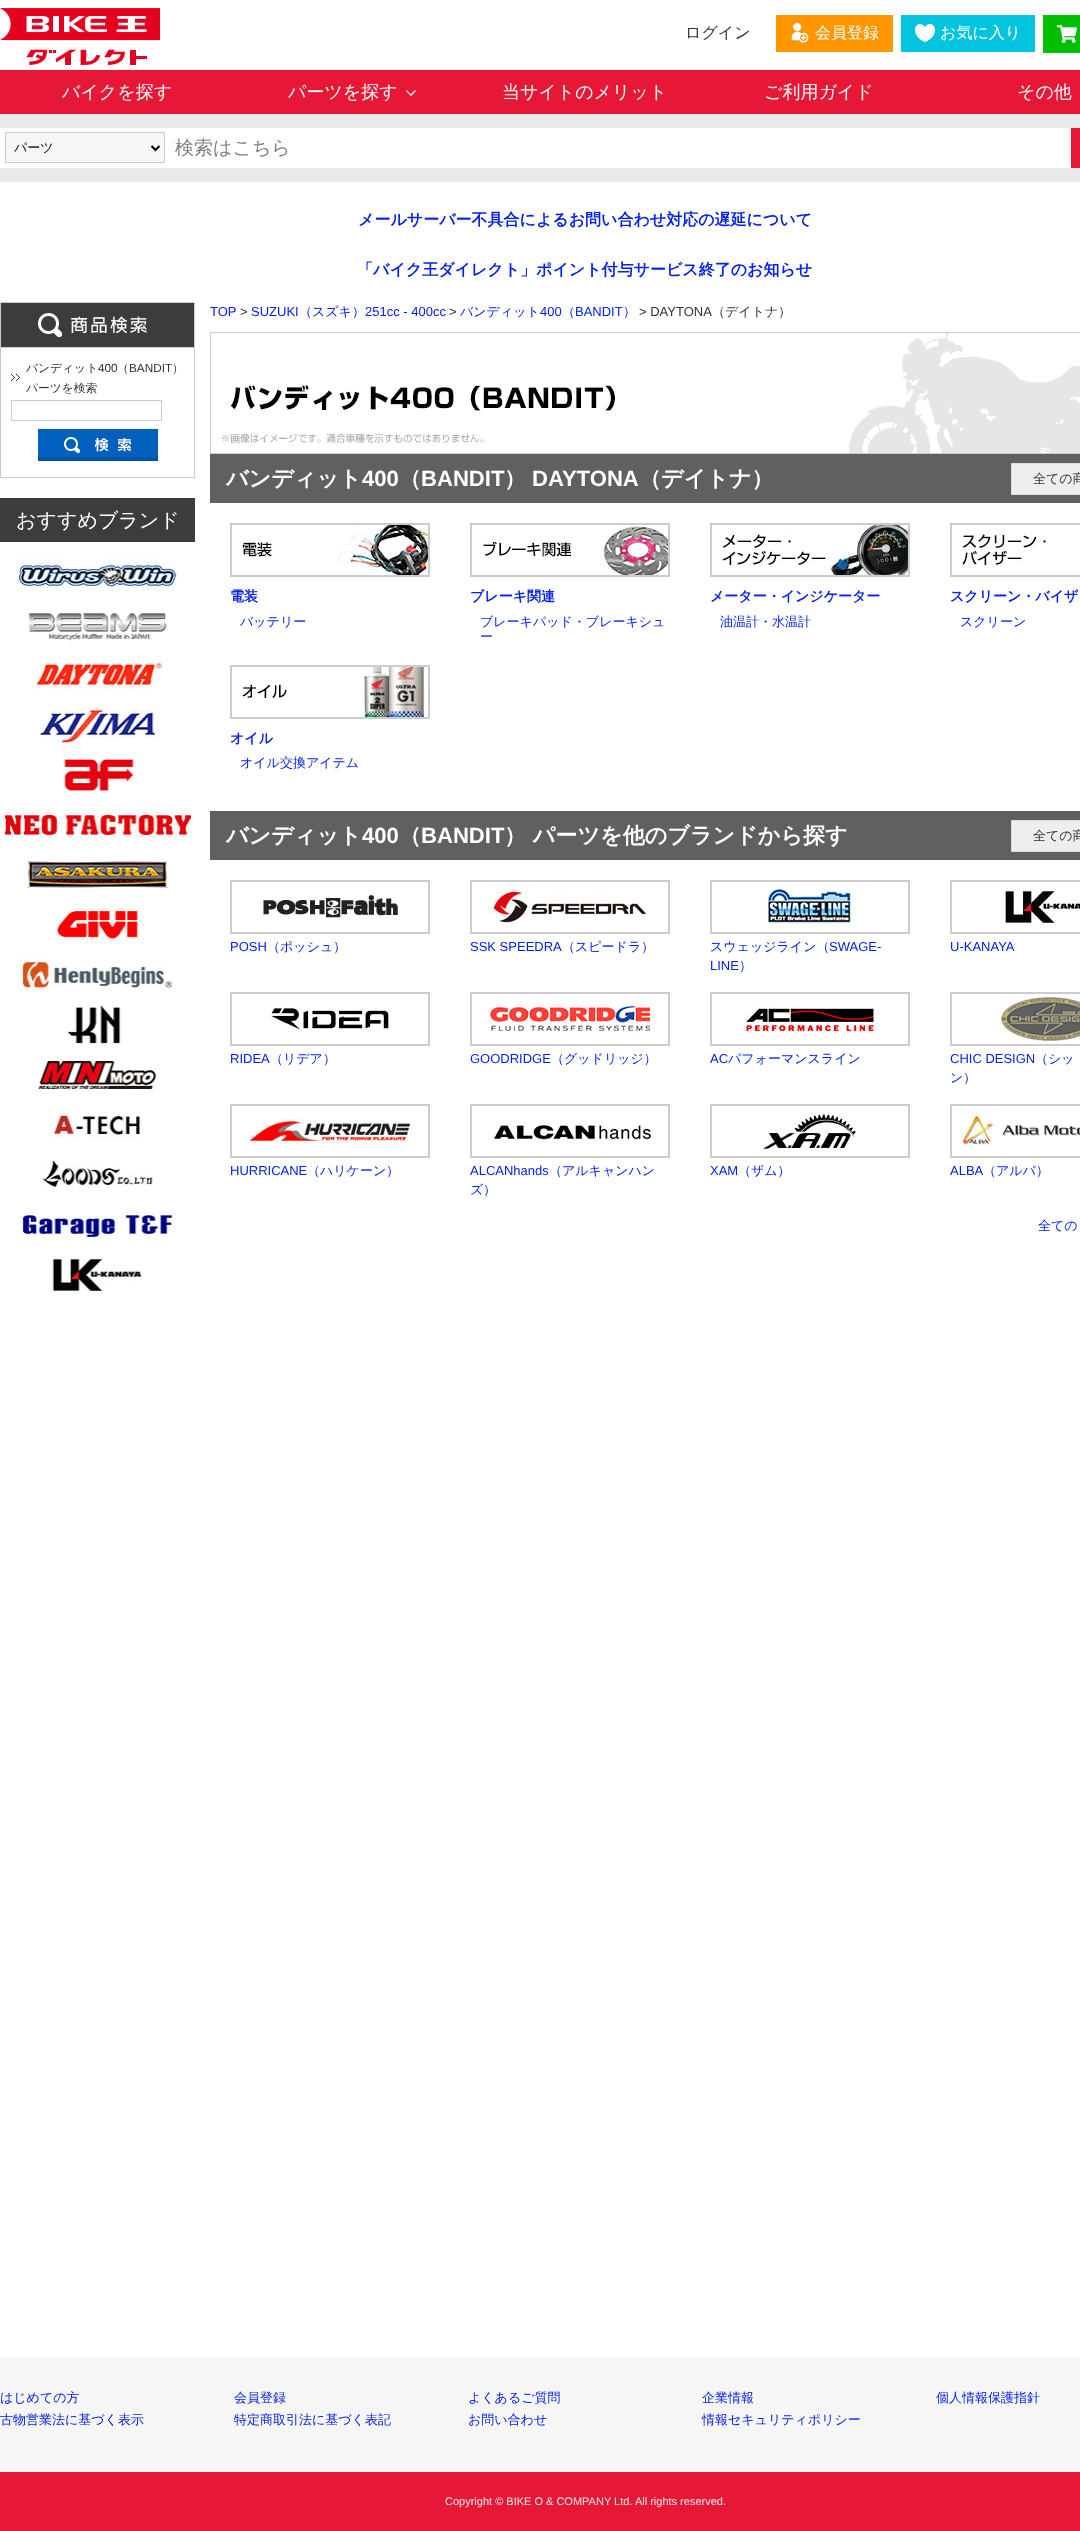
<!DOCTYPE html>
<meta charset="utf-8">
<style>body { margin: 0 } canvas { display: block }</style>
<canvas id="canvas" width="1080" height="2531"></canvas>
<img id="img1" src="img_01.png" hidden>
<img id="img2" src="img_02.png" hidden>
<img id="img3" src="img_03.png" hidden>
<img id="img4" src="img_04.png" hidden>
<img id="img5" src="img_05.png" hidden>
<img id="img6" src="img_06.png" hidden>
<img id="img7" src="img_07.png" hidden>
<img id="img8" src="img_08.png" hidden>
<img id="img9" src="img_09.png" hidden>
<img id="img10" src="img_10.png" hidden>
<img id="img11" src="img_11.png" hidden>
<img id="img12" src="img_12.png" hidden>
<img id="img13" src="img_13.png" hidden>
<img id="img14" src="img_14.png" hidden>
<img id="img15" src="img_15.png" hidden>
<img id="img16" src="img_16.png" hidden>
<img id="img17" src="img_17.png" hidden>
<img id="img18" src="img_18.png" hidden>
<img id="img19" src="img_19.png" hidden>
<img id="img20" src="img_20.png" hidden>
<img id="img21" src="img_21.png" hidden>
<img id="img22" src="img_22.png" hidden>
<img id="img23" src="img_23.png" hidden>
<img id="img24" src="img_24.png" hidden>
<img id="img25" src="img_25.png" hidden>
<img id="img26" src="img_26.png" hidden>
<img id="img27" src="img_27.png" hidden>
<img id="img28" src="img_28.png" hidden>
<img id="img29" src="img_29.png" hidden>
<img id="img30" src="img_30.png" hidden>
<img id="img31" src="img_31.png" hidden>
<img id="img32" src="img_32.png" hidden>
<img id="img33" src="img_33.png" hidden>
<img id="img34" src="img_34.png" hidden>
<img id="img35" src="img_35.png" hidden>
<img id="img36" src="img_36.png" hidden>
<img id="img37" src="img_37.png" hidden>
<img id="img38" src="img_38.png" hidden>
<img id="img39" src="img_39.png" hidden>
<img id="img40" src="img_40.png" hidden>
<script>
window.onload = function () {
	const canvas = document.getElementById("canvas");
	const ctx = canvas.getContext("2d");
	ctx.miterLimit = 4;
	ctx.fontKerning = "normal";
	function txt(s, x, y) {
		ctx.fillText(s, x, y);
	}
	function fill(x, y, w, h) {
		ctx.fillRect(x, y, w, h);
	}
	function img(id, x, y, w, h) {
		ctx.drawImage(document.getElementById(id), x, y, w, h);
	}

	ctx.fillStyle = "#FFFFFF";
	fill(0, 0, 1080, 2531);
	img("img1", 0, 8, 160, 57);
	ctx.fillStyle = "#FF9600";
	fill(776, 15, 117, 37);
	img("img2", 791, 23, 18, 20);
	ctx.fillStyle = "#04C3DF";
	fill(901, 15, 134, 37);
	img("img3", 915, 24, 20, 18);
	ctx.fillStyle = "#00BE00";
	fill(1043, 15, 37, 38);
	img("img4", 1057, 25, 20, 18);
	ctx.fillStyle = "#E61835";
	fill(0, 70, 1080, 44);
	ctx.fillStyle = "#FFFFFF";
	ctx.beginPath();
	ctx.moveTo(415, 90);
	ctx.lineTo(416, 91);
	ctx.lineTo(411, 96);
	ctx.lineTo(410, 95);
	ctx.closePath();
	ctx.fill();
	ctx.beginPath();
	ctx.moveTo(406.5, 90);
	ctx.lineTo(411.5, 95);
	ctx.lineTo(411, 96);
	ctx.lineTo(406, 91);
	ctx.closePath();
	ctx.fill();
	ctx.fillStyle = "#EAEAEA";
	fill(0, 114, 1080, 68);
	ctx.fillStyle = "#FFFFFF";
	fill(0, 128, 1071, 40);
	ctx.fillStyle = "#F6F6F6";
	ctx.beginPath();
	ctx.rect(5.5, 132.5, 159, 30);
	ctx.fill();
	ctx.strokeStyle = "#CCCCCC";
	ctx.stroke();
	ctx.beginPath();
	ctx.moveTo(151.5, 146);
	ctx.lineTo(155.5, 150);
	ctx.lineTo(159.5, 146);
	ctx.strokeStyle = "#000000";
	ctx.lineWidth = 2;
	ctx.stroke();
	ctx.fillStyle = "#E61835";
	fill(1071, 128, 9, 40);
	ctx.fillStyle = "#CCCCCC";
	fill(0, 302, 195, 1);
	fill(194, 302, 1, 45);
	fill(0, 302, 1, 45);
	img("img5", 1, 303, 193, 44);
	ctx.strokeStyle = "#CCCCCC";
	ctx.lineWidth = 1;
	ctx.strokeRect(0.5, 347.5, 194, 130);
	img("img6", 11, 374, 9, 7);
	ctx.strokeRect(11.5, 400.5, 150, 20);
	img("img7", 38, 429, 120, 32);
	ctx.fillStyle = "#3C3C3C";
	fill(0, 498, 195, 44);
	img("img8", 16, 558, 166, 32);
	img("img9", 28, 611, 139, 30);
	img("img10", 32, 658, 135, 32);
	img("img11", 39, 708, 120, 40);
	img("img12", 64, 759, 71, 34);
	img("img13", 0, 808, 192, 32);
	img("img14", 27, 861, 141, 27);
	img("img15", 56, 908, 87, 32);
	img("img16", 16, 958, 158, 32);
	img("img17", 67, 1005, 54, 39);
	img("img18", 38, 1058, 120, 32);
	img("img19", 49, 1108, 94, 32);
	img("img20", 40, 1160, 113, 28);
	img("img21", 16, 1208, 159, 32);
	img("img22", 48, 1259, 94, 38);
	ctx.strokeRect(210.5, 332.5, 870, 121);
	img("img23", 222, 333, 858, 120);
	ctx.fillStyle = "#606060";
	fill(210, 454, 870, 49);
	ctx.fillStyle = "#EEEEEE";
	ctx.beginPath();
	ctx.rect(1011.5, 463.5, 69, 31);
	ctx.fill();
	ctx.strokeStyle = "#DDDDDD";
	ctx.stroke();
	ctx.strokeStyle = "#CCCCCC";
	ctx.lineWidth = 2;
	ctx.strokeRect(231, 524, 198, 52);
	img("img24", 240, 525, 188, 50);
	ctx.strokeRect(471, 524, 198, 52);
	img("img25", 482, 526, 186, 49);
	ctx.strokeRect(711, 524, 198, 52);
	img("img26", 721, 525, 187, 50);
	ctx.strokeRect(951, 524, 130, 52);
	img("img27", 962, 534, 84, 31);
	ctx.strokeRect(231, 666, 198, 52);
	img("img28", 242, 667, 183, 50);
	ctx.fillStyle = "#606060";
	fill(210, 811, 870, 49);
	ctx.fillStyle = "#EEEEEE";
	ctx.beginPath();
	ctx.rect(1011.5, 820.5, 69, 31);
	ctx.fill();
	ctx.strokeStyle = "#DDDDDD";
	ctx.lineWidth = 1;
	ctx.stroke();
	ctx.strokeStyle = "#CCCCCC";
	ctx.lineWidth = 2;
	ctx.strokeRect(231, 881, 198, 52);
	img("img29", 263, 895, 135, 23);
	ctx.strokeRect(471, 881, 198, 52);
	img("img30", 488, 890, 160, 33);
	ctx.strokeRect(711, 881, 198, 52);
	img("img31", 767, 882, 89, 48);
	ctx.strokeRect(951, 881, 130, 52);
	img("img32", 1000, 891, 80, 39);
	ctx.strokeRect(231, 993, 198, 52);
	img("img33", 270, 1004, 121, 28);
	ctx.strokeRect(471, 993, 198, 52);
	img("img34", 488, 1002, 168, 32);
	ctx.strokeRect(711, 993, 198, 52);
	img("img35", 744, 1005, 136, 29);
	ctx.strokeRect(951, 993, 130, 52);
	img("img36", 998, 994, 82, 49);
	ctx.strokeRect(231, 1105, 198, 52);
	img("img37", 248, 1114, 166, 32);
	ctx.strokeRect(471, 1105, 198, 52);
	img("img38", 494, 1125, 157, 15);
	ctx.strokeRect(711, 1105, 198, 52);
	img("img39", 762, 1114, 94, 39);
	ctx.strokeRect(951, 1105, 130, 52);
	img("img40", 963, 1116, 117, 29);
	ctx.fillStyle = "#F6F6F6";
	fill(0, 2357, 1080, 115);
	ctx.fillStyle = "#E61835";
	fill(0, 2472, 1080, 59);
	ctx.font = "500 16px WenQuanYi Zen Hei";
	ctx.fillStyle = "#333333";
	txt("ログイン", 685, 38);
	ctx.fillStyle = "#FFFFFF";
	txt("会員登録", 815, 38);
	txt("お気に入り", 940, 38);
	ctx.font = "500 18px WenQuanYi Zen Hei";
	txt("バイクを探す", 62, 98);
	txt("パーツを探す", 288, 98);
	txt("当サイトのメリット", 502, 98);
	txt("ご利用ガイド", 764, 98);
	txt("その他", 1017, 98);
	ctx.font = "500 13px WenQuanYi Zen Hei";
	ctx.fillStyle = "#000000";
	txt("パーツ", 14, 152);
	ctx.font = "500 19px WenQuanYi Zen Hei";
	ctx.fillStyle = "#808080";
	txt("検索はこちら", 175, 154);
	ctx.font = "bold 16px WenQuanYi Zen Hei";
	ctx.fillStyle = "#0421EA";
	txt("メールサーバー不具合によるお問い合わせ対応の遅延について", 358, 225);
	txt("「バイク王ダイレクト」ポイント付与サービス終了のお知らせ", 357, 275);
	ctx.font = "500 11.75px WenQuanYi Zen Hei";
	ctx.fillStyle = "#333333";
	txt("バンディット", 26, 372);
	ctx.font = "11.75px Liberation Sans";
	txt("400", 98, 372);
	ctx.font = "500 11.75px WenQuanYi Zen Hei";
	txt("（", 117, 372);
	ctx.font = "11.75px Liberation Sans";
	txt("BANDIT", 129, 372);
	ctx.font = "500 11.75px WenQuanYi Zen Hei";
	txt("）", 172, 372);
	txt("パーツを検索", 26, 392);
	ctx.font = "500 20px WenQuanYi Zen Hei";
	ctx.fillStyle = "#FFFFFF";
	txt("おすすめブランド", 16, 527);
	ctx.font = "13px Liberation Sans";
	ctx.fillStyle = "#0421EA";
	txt("TOP", 210, 316);
	ctx.fillStyle = "#333333";
	txt(">", 240, 316);
	ctx.fillStyle = "#0421EA";
	txt("SUZUKI", 251, 316);
	ctx.font = "500 13px WenQuanYi Zen Hei";
	txt("（スズキ）", 299, 316);
	ctx.font = "13px Liberation Sans";
	txt("251cc - 400cc", 365, 316);
	ctx.fillStyle = "#333333";
	txt(">", 449, 316);
	ctx.font = "500 13px WenQuanYi Zen Hei";
	ctx.fillStyle = "#0421EA";
	txt("バンディット", 460, 316);
	ctx.font = "13px Liberation Sans";
	txt("400", 540, 316);
	ctx.font = "500 13px WenQuanYi Zen Hei";
	txt("（", 562, 316);
	ctx.font = "13px Liberation Sans";
	txt("BANDIT", 575, 316);
	ctx.font = "500 13px WenQuanYi Zen Hei";
	txt("）", 623, 316);
	ctx.font = "13px Liberation Sans";
	ctx.fillStyle = "#333333";
	txt("> DAYTONA", 639, 316);
	ctx.font = "500 13px WenQuanYi Zen Hei";
	txt("（デイトナ）", 712, 316);
	ctx.font = "bold 22.1px WenQuanYi Zen Hei";
	ctx.fillStyle = "#FFFFFF";
	txt("バンディット", 226, 486);
	ctx.font = "bold 22.1px Liberation Sans";
	txt("400", 362, 486);
	ctx.font = "bold 22.1px WenQuanYi Zen Hei";
	txt("（", 399, 486);
	ctx.font = "bold 22.1px Liberation Sans";
	txt("BANDIT", 421, 486);
	ctx.font = "bold 22.1px WenQuanYi Zen Hei";
	txt("）", 504, 486);
	ctx.font = "bold 22.1px Liberation Sans";
	txt("DAYTONA", 532, 486);
	ctx.font = "bold 22.1px WenQuanYi Zen Hei";
	txt("（デイトナ）", 639, 486);
	ctx.font = "500 13px WenQuanYi Zen Hei";
	ctx.fillStyle = "#333333";
	txt("全ての商", 1033, 483);
	ctx.font = "bold 14px WenQuanYi Zen Hei";
	ctx.fillStyle = "#0421EA";
	txt("電装", 230, 601);
	ctx.font = "500 13px WenQuanYi Zen Hei";
	txt("バッテリー", 240, 626);
	ctx.font = "bold 14px WenQuanYi Zen Hei";
	txt("ブレーキ関連", 470, 601);
	ctx.font = "500 13px WenQuanYi Zen Hei";
	txt("ブレーキパッド・ブレーキシュ", 480, 626);
	txt("ー", 480, 641);
	ctx.font = "bold 14px WenQuanYi Zen Hei";
	txt("メーター・インジケーター", 710, 601);
	ctx.font = "500 13px WenQuanYi Zen Hei";
	txt("油温計・水温計", 720, 626);
	ctx.font = "bold 14px WenQuanYi Zen Hei";
	txt("スクリーン・バイザ", 950, 601);
	ctx.font = "500 13px WenQuanYi Zen Hei";
	txt("スクリーン", 960, 626);
	ctx.font = "bold 14px WenQuanYi Zen Hei";
	txt("オイル", 230, 743);
	ctx.font = "500 13px WenQuanYi Zen Hei";
	txt("オイル交換アイテム", 240, 767);
	ctx.font = "bold 22.1px WenQuanYi Zen Hei";
	ctx.fillStyle = "#FFFFFF";
	txt("バンディット", 226, 843);
	ctx.font = "bold 22.1px Liberation Sans";
	txt("400", 362, 843);
	ctx.font = "bold 22.1px WenQuanYi Zen Hei";
	txt("（", 399, 843);
	ctx.font = "bold 22.1px Liberation Sans";
	txt("BANDIT", 421, 843);
	ctx.font = "bold 22.1px WenQuanYi Zen Hei";
	txt("） パーツを他のブランドから探す", 504, 843);
	ctx.font = "500 13px WenQuanYi Zen Hei";
	ctx.fillStyle = "#333333";
	txt("全ての商", 1033, 840);
	ctx.font = "13px Liberation Sans";
	ctx.fillStyle = "#0421EA";
	txt("POSH", 230, 951);
	ctx.font = "500 13px WenQuanYi Zen Hei";
	txt("（ポッシュ）", 267, 951);
	ctx.font = "13px Liberation Sans";
	txt("SSK SPEEDRA", 470, 951);
	ctx.font = "500 13px WenQuanYi Zen Hei";
	txt("（スピードラ）", 562, 951);
	txt("スウェッジライン（", 710, 951);
	ctx.font = "13px Liberation Sans";
	txt("SWAGE-", 829, 951);
	txt("LINE", 710, 970);
	ctx.font = "500 13px WenQuanYi Zen Hei";
	txt("）", 739, 970);
	ctx.font = "13px Liberation Sans";
	txt("U-KANAYA", 950, 951);
	txt("RIDEA", 230, 1063);
	ctx.font = "500 13px WenQuanYi Zen Hei";
	txt("（リデア）", 270, 1063);
	ctx.font = "13px Liberation Sans";
	txt("GOODRIDGE", 470, 1063);
	ctx.font = "500 13px WenQuanYi Zen Hei";
	txt("（グッドリッジ）", 551, 1063);
	ctx.font = "13px Liberation Sans";
	txt("AC", 710, 1063);
	ctx.font = "500 13px WenQuanYi Zen Hei";
	txt("パフォーマンスライン", 728, 1063);
	ctx.font = "13px Liberation Sans";
	txt("CHIC DESIGN", 950, 1063);
	ctx.font = "500 13px WenQuanYi Zen Hei";
	txt("（シッ", 1035, 1063);
	txt("ン）", 950, 1082);
	ctx.font = "13px Liberation Sans";
	txt("HURRICANE", 230, 1175);
	ctx.font = "500 13px WenQuanYi Zen Hei";
	txt("（ハリケーン）", 307, 1175);
	ctx.font = "13px Liberation Sans";
	txt("ALCANhands", 470, 1175);
	ctx.font = "500 13px WenQuanYi Zen Hei";
	txt("（アルキャンハン", 549, 1175);
	txt("ズ）", 470, 1194);
	ctx.font = "13px Liberation Sans";
	txt("XAM", 710, 1175);
	ctx.font = "500 13px WenQuanYi Zen Hei";
	txt("（ザム）", 738, 1175);
	ctx.font = "13px Liberation Sans";
	txt("ALBA", 950, 1175);
	ctx.font = "500 13px WenQuanYi Zen Hei";
	txt("（アルバ）", 983, 1175);
	txt("全ての", 1038, 1230);
	txt("はじめての方", 0, 2402);
	txt("会員登録", 234, 2402);
	txt("よくあるご質問", 468, 2402);
	txt("企業情報", 702, 2402);
	txt("個人情報保護指針", 936, 2402);
	txt("古物営業法に基づく表示", 0, 2424);
	txt("特定商取引法に基づく表記", 234, 2424);
	txt("お問い合わせ", 468, 2424);
	txt("情報セキュリティポリシー", 702, 2424);
	ctx.font = "11px Liberation Sans";
	ctx.fillStyle = "#EEEEEE";
	txt("Copyright © BIKE O & COMPANY Ltd. All rights reserved.", 445, 2505);
};
</script>
